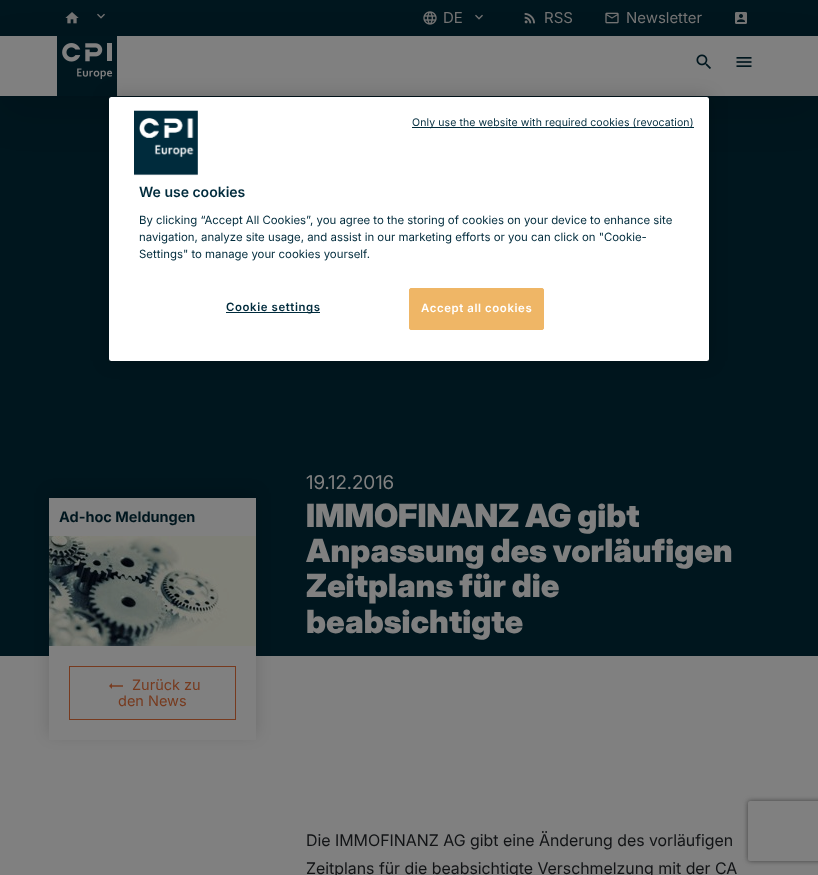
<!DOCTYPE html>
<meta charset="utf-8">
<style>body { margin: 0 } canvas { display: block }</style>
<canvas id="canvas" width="818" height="875"></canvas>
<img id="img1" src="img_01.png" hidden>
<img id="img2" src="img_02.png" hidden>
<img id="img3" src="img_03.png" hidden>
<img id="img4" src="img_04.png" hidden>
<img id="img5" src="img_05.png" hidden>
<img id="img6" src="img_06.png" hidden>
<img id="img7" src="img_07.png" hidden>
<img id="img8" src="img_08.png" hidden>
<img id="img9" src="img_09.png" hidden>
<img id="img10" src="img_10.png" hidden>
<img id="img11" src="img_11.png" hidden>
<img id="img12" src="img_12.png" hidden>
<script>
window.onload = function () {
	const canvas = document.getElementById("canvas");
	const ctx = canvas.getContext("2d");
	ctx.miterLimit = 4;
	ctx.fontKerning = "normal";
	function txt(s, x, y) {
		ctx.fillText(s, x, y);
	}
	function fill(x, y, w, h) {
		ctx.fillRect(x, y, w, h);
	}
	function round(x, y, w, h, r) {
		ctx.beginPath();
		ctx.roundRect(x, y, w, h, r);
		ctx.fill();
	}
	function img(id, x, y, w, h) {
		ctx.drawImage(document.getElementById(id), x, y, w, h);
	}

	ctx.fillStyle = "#808080";
	fill(0, 0, 818, 875);
	ctx.fillStyle = "#00161E";
	fill(0, 0, 818, 36);
	fill(0, 96, 818, 560);
	ctx.fillStyle = "rgba(0, 0, 0, 0.12)";
	ctx.filter = "blur(20px)";
	ctx.beginPath();
	ctx.rect(0, 52, 818, 60);
	ctx.fill();
	ctx.filter = "none";
	ctx.fillStyle = "#808080";
	fill(0, 36, 818, 60);
	img("img1", 57, 36, 60, 60);
	img("img2", 696, 54, 15, 15);
	img("img3", 736, 57, 16, 10);
	img("img4", 65, 12, 14, 12);
	img("img5", 97, 13, 8, 6);
	img("img6", 423, 11, 14, 14);
	img("img5", 475, 14, 8, 6);
	img("img7", 524, 13, 11, 11);
	img("img8", 605, 12, 14, 12);
	img("img9", 735, 12, 12, 12);
	ctx.fillStyle = "rgba(0, 0, 0, 0.15)";
	ctx.filter = "blur(7.5px)";
	ctx.beginPath();
	ctx.rect(49, 493, 207, 242);
	ctx.fill();
	ctx.filter = "none";
	ctx.fillStyle = "#808080";
	fill(49, 498, 207, 38);
	img("img10", 49, 536, 207, 110);
	fill(49, 646, 207, 94);
	ctx.strokeStyle = "#773A1E";
	ctx.strokeRect(69.5, 666.5, 166, 53);
	img("img11", 109, 683, 14, 6);
	ctx.save();
	ctx.beginPath();
	ctx.moveTo(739, 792);
	ctx.lineTo(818, 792);
	ctx.lineTo(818, 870);
	ctx.lineTo(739, 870);
	ctx.closePath();
	ctx.moveTo(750, 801);
	ctx.lineTo(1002, 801);
	ctx.bezierCurveTo(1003, 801, 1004, 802, 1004, 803);
	ctx.lineTo(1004, 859);
	ctx.bezierCurveTo(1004, 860, 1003, 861, 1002, 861);
	ctx.lineTo(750, 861);
	ctx.bezierCurveTo(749, 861, 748, 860, 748, 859);
	ctx.lineTo(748, 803);
	ctx.bezierCurveTo(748, 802, 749, 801, 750, 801);
	ctx.closePath();
	ctx.clip("evenodd");
	ctx.fillStyle = "#404040";
	ctx.filter = "blur(2.5px)";
	ctx.beginPath();
	ctx.roundRect(748, 801, 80, 60, 2);
	ctx.fill();
	ctx.filter = "none";
	ctx.restore();
	ctx.fillStyle = "rgba(0, 0, 0, 0.2)";
	ctx.filter = "blur(9px)";
	ctx.beginPath();
	ctx.roundRect(109, 97, 600, 264, 2.5);
	ctx.fill();
	ctx.filter = "none";
	ctx.fillStyle = "#FFFFFF";
	round(109, 97, 600, 264, 2.5);
	ctx.fillStyle = "#002B3C";
	fill(412, 127, 282, 1);
	img("img12", 134, 110, 64, 66);
	fill(226, 312, 94, 1);
	ctx.fillStyle = "#EFB666";
	ctx.beginPath();
	ctx.roundRect(409.5, 288.5, 134, 41, 1.5);
	ctx.fill();
	ctx.strokeStyle = "#EFB666";
	ctx.stroke();
	ctx.font = "15px 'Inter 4'";
	ctx.fillStyle = "#737373";
	txt("DE", 443, 23);
	ctx.font = "15px Inter";
	txt("RSS", 544, 23);
	ctx.font = "15px 'Inter 4'";
	txt("Newsletter", 626, 23);
	ctx.font = "bold 14.5px Inter";
	ctx.fillStyle = "#00161E";
	txt("Ad-hoc Meldungen", 59, 522);
	ctx.font = "14.5px Inter";
	ctx.fillStyle = "#773A1E";
	txt("Zurück zu", 132, 690);
	txt("den News", 118, 706);
	ctx.font = "19px 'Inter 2'";
	ctx.fillStyle = "#808080";
	txt("19.12.2016", 306, 489);
	ctx.font = "900 32px Inter";
	txt("IMMOFINANZ AG gibt", 306, 527);
	txt("Anpassung des vorläufigen", 306, 562);
	txt("Zeitplans für die", 306, 597);
	txt("beabsichtigte", 306, 633);
	ctx.font = "16px 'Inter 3'";
	ctx.fillStyle = "#111315";
	txt("Die IMMOFINANZ AG gibt eine Änderung des vorläufigen", 306, 846);
	txt("Zeitplans für die beabsichtigte Verschmelzung mit der CA", 306, 874);
	ctx.letterSpacing = "0.1px";
	ctx.font = "10.5px Inter";
	ctx.fillStyle = "#002B3C";
	txt("Only use the website with required cookies (revocation)", 412, 126);
	ctx.letterSpacing = "0px";
	ctx.font = "600 14px Inter";
	txt("We use cookies", 139, 197);
	ctx.font = "11.4px Inter";
	txt("By clicking “Accept All Cookies”, you agree to the storing of cookies on your device to enhance site", 139, 224);
	txt("navigation, analyze site usage, and assist in our marketing efforts or you can click on \"Cookie-", 139, 241);
	txt("Settings\" to manage your cookies yourself.", 139, 258);
	ctx.letterSpacing = "0.6px";
	ctx.font = "600 11.4px Inter";
	txt("Cookie settings", 226, 311);
	ctx.fillStyle = "#FFFFFF";
	txt("Accept all cookies", 421, 312);
};
</script>
